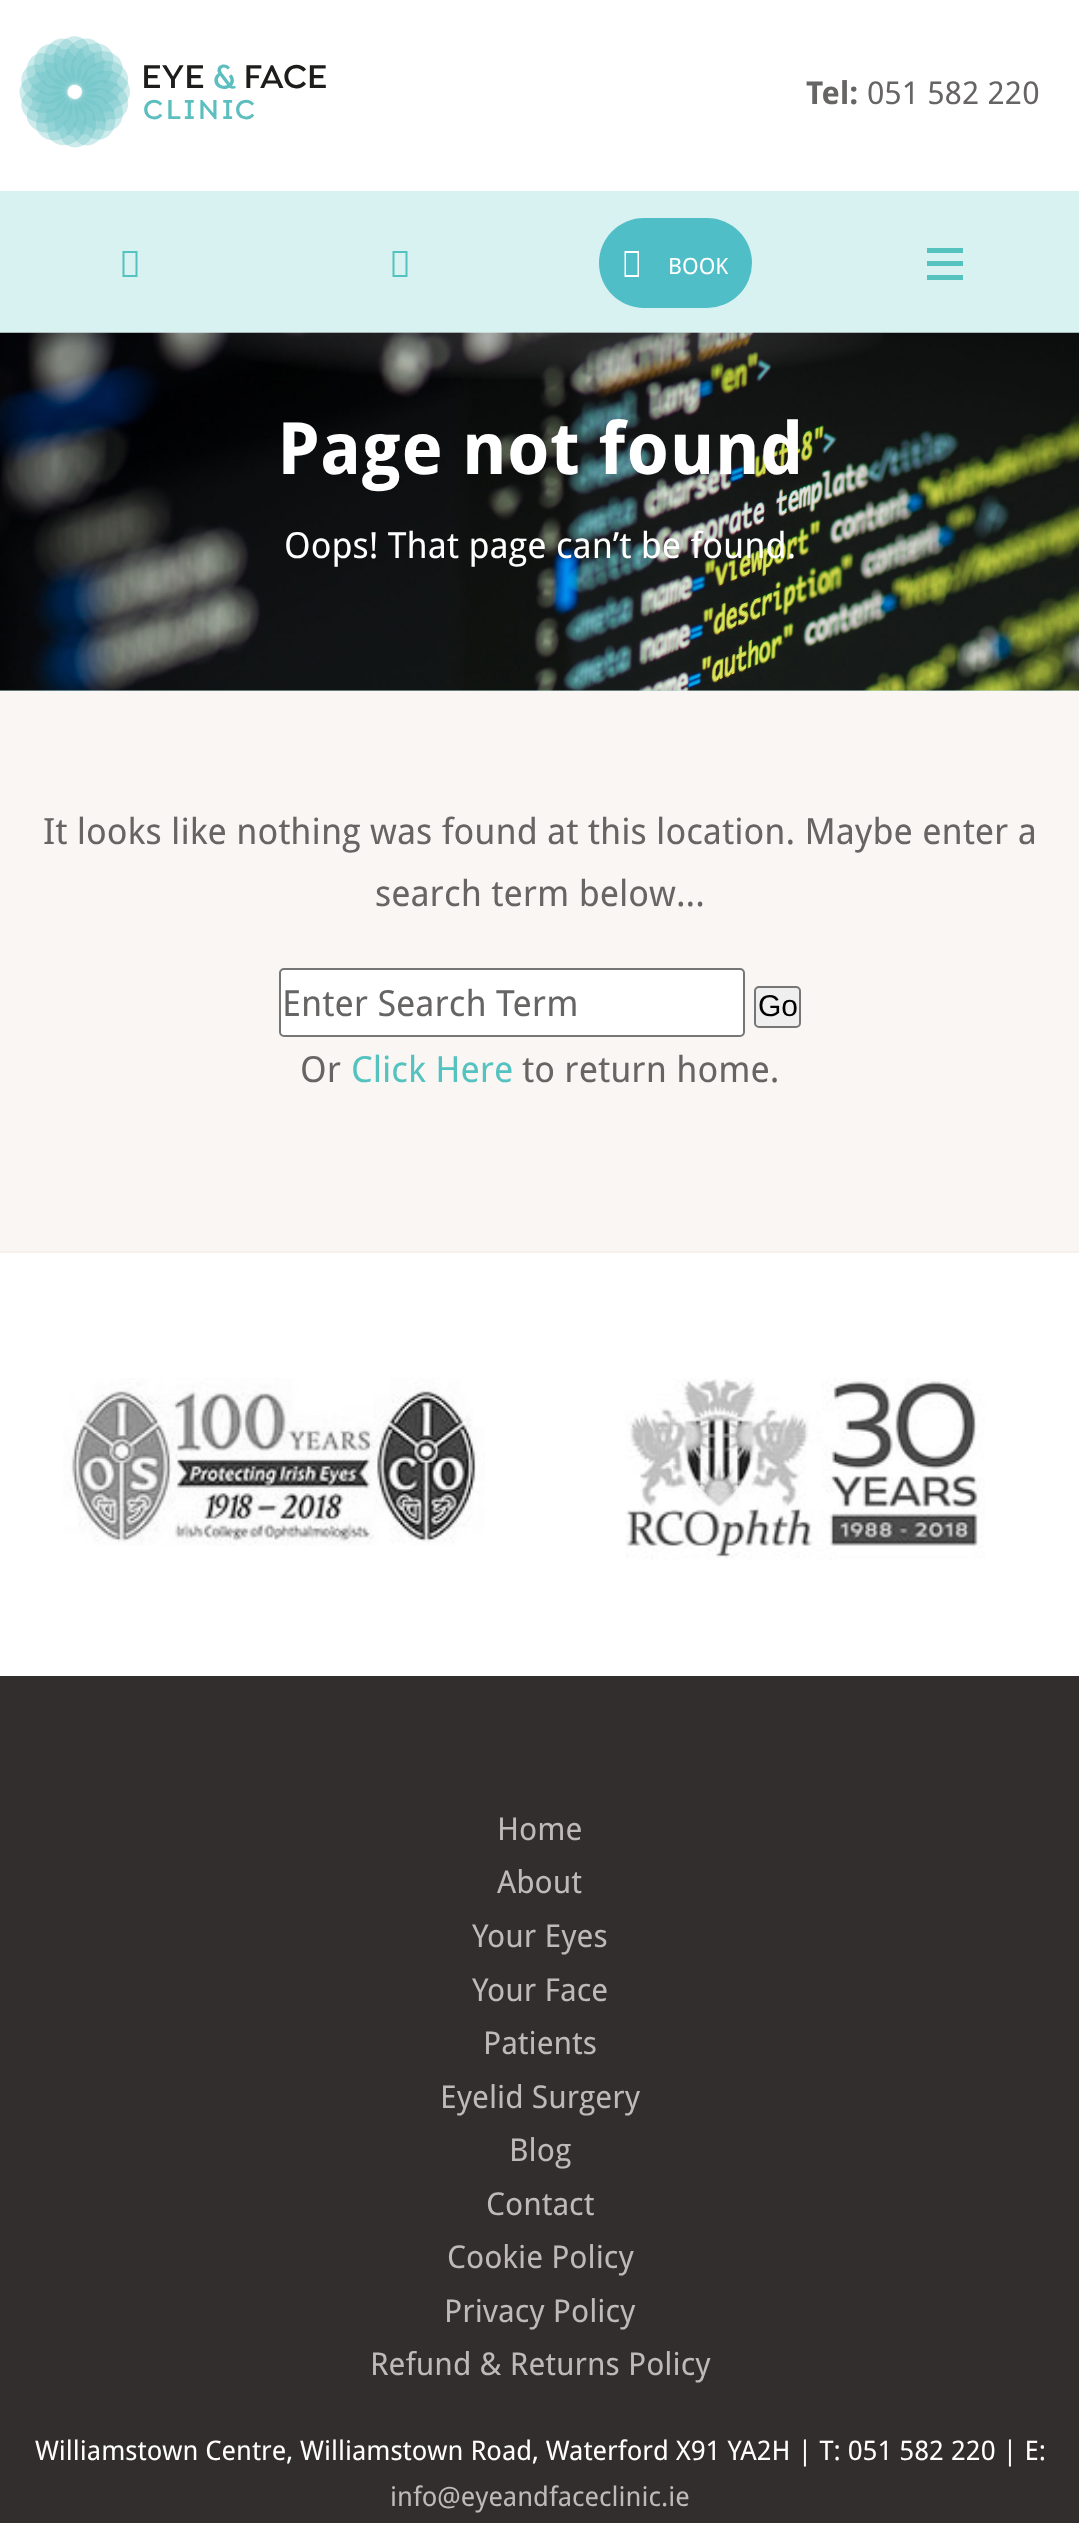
<!DOCTYPE html>
<meta charset="utf-8">
<style>body { margin: 0 } canvas { display: block }</style>
<canvas id="canvas" width="1079" height="2523"></canvas>
<img id="img1" src="img_01.png" hidden>
<img id="img2" src="img_03.png" hidden>
<img id="img3" src="img_02.png" hidden>
<img id="img4" src="img_04.png" hidden>
<img id="img5" src="img_05.png" hidden>
<script>
window.onload = function () {
	const canvas = document.getElementById("canvas");
	const ctx = canvas.getContext("2d");
	ctx.miterLimit = 4;
	ctx.fontKerning = "normal";
	function txt(s, x, y) {
		ctx.fillText(s, x, y);
	}
	function fill(x, y, w, h) {
		ctx.fillRect(x, y, w, h);
	}
	function round(x, y, w, h, r) {
		ctx.beginPath();
		ctx.roundRect(x, y, w, h, r);
		ctx.fill();
	}
	function img(id, x, y, w, h) {
		ctx.drawImage(document.getElementById(id), x, y, w, h);
	}

	ctx.fillStyle = "#FFFFFF";
	fill(0, 0, 1079, 2523);
	img("img1", 19, 36, 307, 112);
	ctx.fillStyle = "#D8F1F1";
	fill(0, 191, 1079, 142);
	ctx.fillStyle = "#54C3C0";
	ctx.beginPath();
	ctx.moveTo(122.5, 277);
	ctx.lineTo(122.5, 251);
	ctx.lineTo(137.5, 251);
	ctx.lineTo(137.5, 277);
	ctx.closePath();
	ctx.moveTo(124.5, 275);
	ctx.lineTo(135.5, 275);
	ctx.lineTo(135.5, 253);
	ctx.lineTo(124.5, 253);
	ctx.closePath();
	ctx.fill();
	ctx.beginPath();
	ctx.moveTo(392.5, 277);
	ctx.lineTo(392.5, 251);
	ctx.lineTo(407.5, 251);
	ctx.lineTo(407.5, 277);
	ctx.closePath();
	ctx.moveTo(394.5, 275);
	ctx.lineTo(405.5, 275);
	ctx.lineTo(405.5, 253);
	ctx.lineTo(394.5, 253);
	ctx.closePath();
	ctx.fill();
	ctx.fillStyle = "#50BEC7";
	round(599, 218, 153, 90, 45);
	ctx.fillStyle = "#FFFFFF";
	ctx.beginPath();
	ctx.moveTo(624.5, 277);
	ctx.lineTo(624.5, 251);
	ctx.lineTo(639, 251);
	ctx.lineTo(639, 277);
	ctx.closePath();
	ctx.moveTo(626, 275);
	ctx.lineTo(637.5, 275);
	ctx.lineTo(637.5, 253);
	ctx.lineTo(626, 253);
	ctx.closePath();
	ctx.fill();
	ctx.fillStyle = "#54C3C0";
	fill(927, 248, 36, 5);
	fill(927, 261, 36, 5);
	fill(927, 275, 36, 5);
	ctx.fillStyle = "#B2E4E3";
	fill(0, 690, 1079, 1);
	img("img2", 0, 332, 1079, 359);
	img("img3", 212, 332, 671, 47);
	ctx.fillStyle = "#F9F6F3";
	fill(0, 691, 1079, 560);
	ctx.fillStyle = "#FFFFFF";
	ctx.beginPath();
	ctx.roundRect(280, 969, 464, 67, 4);
	ctx.fill();
	ctx.strokeStyle = "#767676";
	ctx.lineWidth = 2;
	ctx.stroke();
	ctx.fillStyle = "#EFEFEF";
	ctx.beginPath();
	ctx.roundRect(755, 987, 45, 40, 4);
	ctx.fill();
	ctx.stroke();
	ctx.fillStyle = "#F6F1EC";
	fill(0, 1251, 1079, 2);
	img("img4", 63, 1378, 422, 168);
	img("img5", 625, 1378, 360, 182);
	ctx.fillStyle = "#332E2E";
	fill(0, 1676, 1079, 847);
	ctx.font = "bold 31.5px Droid Sans";
	ctx.fillStyle = "#676464";
	txt("Tel:", 806, 104);
	ctx.font = "31.5px Droid Sans";
	txt("051 582 220", 867, 104);
	ctx.font = "22.5px Droid Sans";
	ctx.fillStyle = "#FFFFFF";
	txt("BOOK", 668, 274);
	ctx.font = "bold 72px Droid Sans";
	txt("Page not found", 277, 474);
	ctx.font = "36px Droid Sans";
	txt("Oops! That page can’t be found.", 284, 558);
	ctx.fillStyle = "#676464";
	txt("It looks like nothing was found at this location. Maybe enter a", 43, 844);
	txt("search term below...", 375, 906);
	txt("Enter Search Term", 282, 1016);
	ctx.font = "30px Liberation Sans";
	ctx.fillStyle = "#000000";
	txt("Go", 758, 1016);
	ctx.font = "36px Droid Sans";
	ctx.fillStyle = "#676464";
	txt("Or", 300, 1082);
	ctx.fillStyle = "#54C3C0";
	txt("Click Here", 351, 1082);
	ctx.fillStyle = "#676464";
	txt("to return home.", 522, 1082);
	ctx.font = "31.5px Droid Sans";
	ctx.fillStyle = "#C0B9B9";
	txt("Home", 497, 1840);
	txt("About", 497, 1893);
	txt("Your Eyes", 472, 1947);
	txt("Your Face", 472, 2001);
	txt("Patients", 483, 2054);
	txt("Eyelid Surgery", 440, 2108);
	txt("Blog", 509, 2161);
	txt("Contact", 486, 2215);
	txt("Cookie Policy", 447, 2268);
	txt("Privacy Policy", 444, 2322);
	txt("Refund & Returns Policy", 370, 2375);
	ctx.font = "27px Droid Sans";
	ctx.fillStyle = "#FFFFFF";
	txt("Williamstown Centre, Williamstown Road, Waterford X91 YA2H | T: 051 582 220 | E:", 35, 2460);
	ctx.fillStyle = "#C0B9B9";
	txt("info@eyeandfaceclinic.ie", 390, 2506);
};
</script>
